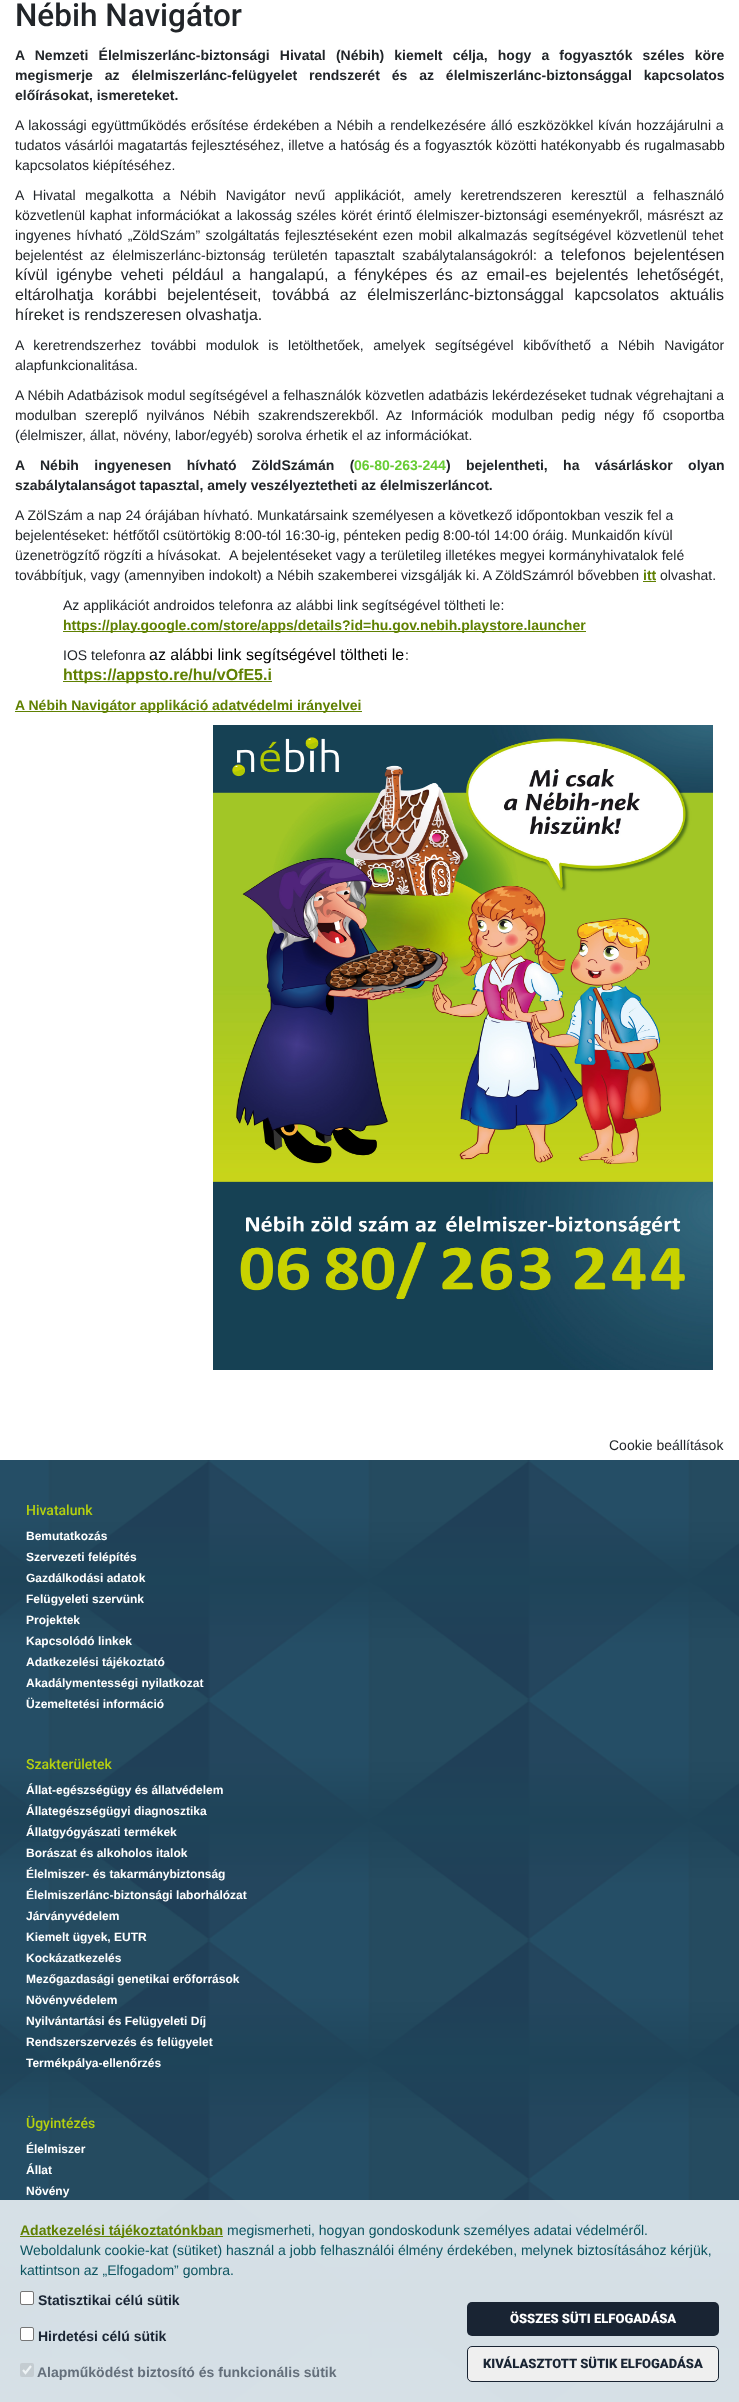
<!DOCTYPE html>
<meta charset="utf-8">
<style>body { margin: 0 } canvas { display: block }</style>
<canvas id="canvas" width="739" height="2402"></canvas>
<img id="img1" src="img_01.png" hidden>
<img id="img2" src="img_02.png" hidden>
<script>
window.onload = function () {
	const canvas = document.getElementById("canvas");
	const ctx = canvas.getContext("2d");
	ctx.miterLimit = 4;
	ctx.fontKerning = "normal";
	function txt(s, x, y) {
		ctx.fillText(s, x, y);
	}
	function fill(x, y, w, h) {
		ctx.fillRect(x, y, w, h);
	}
	function round(x, y, w, h, r) {
		ctx.beginPath();
		ctx.roundRect(x, y, w, h, r);
		ctx.fill();
	}
	function img(id, x, y, w, h) {
		ctx.drawImage(document.getElementById(id), x, y, w, h);
	}

	ctx.fillStyle = "#FFFFFF";
	fill(0, 0, 739, 2402);
	ctx.fillStyle = "#5F8001";
	fill(643, 581, 13, 1);
	fill(63, 631, 523, 1);
	fill(63, 681, 209, 1);
	fill(15, 711, 347, 1);
	img("img1", 213, 725, 500, 645);
	img("img2", 0, 1460, 739, 942);
	ctx.fillStyle = "rgba(223, 232, 237, 0.95)";
	fill(0, 2200, 739, 202);
	ctx.fillStyle = "#5F8001";
	fill(20, 2236, 203, 1);
	ctx.fillStyle = "#FFFFFF";
	ctx.beginPath();
	ctx.roundRect(20.5, 2291.5, 13, 13, 1.5);
	ctx.fill();
	ctx.strokeStyle = "#767676";
	ctx.stroke();
	ctx.beginPath();
	ctx.roundRect(20.5, 2327.5, 13, 13, 1.5);
	ctx.fill();
	ctx.stroke();
	ctx.fillStyle = "rgba(118, 118, 118, 0.18)";
	round(20, 2363, 14, 14, 2);
	ctx.beginPath();
	ctx.moveTo(23, 2370);
	ctx.lineTo(25.5, 2373);
	ctx.lineTo(31, 2366);
	ctx.strokeStyle = "#EEF3F5";
	ctx.lineWidth = 2.2;
	ctx.stroke();
	ctx.fillStyle = "#192433";
	round(467, 2302, 252, 34, 5);
	ctx.fillStyle = "#EFEFEF";
	ctx.beginPath();
	ctx.roundRect(467.5, 2346.5, 251, 35, 4.5);
	ctx.fill();
	ctx.strokeStyle = "#192433";
	ctx.lineWidth = 1;
	ctx.stroke();
	ctx.font = "500 31.5px Roboto";
	ctx.fillStyle = "#212529";
	txt("Nébih Navigátor", 15, 26);
	ctx.wordSpacing = "6.25px";
	ctx.font = "bold 14px Liberation Sans";
	txt("A Nemzeti Élelmiszerlánc-biztonsági Hivatal (Nébih) kiemelt célja, hogy a fogyasztók széles köre", 15, 60);
	ctx.wordSpacing = "8px";
	txt("megismerje az élelmiszerlánc-felügyelet rendszerét és az élelmiszerlánc-biztonsággal kapcsolatos", 15, 80);
	ctx.wordSpacing = "0px";
	txt("előírásokat, ismereteket.", 15, 100);
	ctx.wordSpacing = "0.8px";
	ctx.font = "14px Liberation Sans";
	txt("A lakossági együttműködés erősítése érdekében a Nébih a rendelkezésére álló eszközökkel kíván hozzájárulni a", 15, 130);
	ctx.wordSpacing = "0.25px";
	txt("tudatos vásárlói magatartás fejlesztéséhez, illetve a hatóság és a fogyasztók közötti hatékonyabb és rugalmasabb", 15, 150);
	ctx.wordSpacing = "0px";
	txt("kapcsolatos kiépítéséhez.", 15, 170);
	ctx.wordSpacing = "5.4px";
	txt("A Hivatal megalkotta a Nébih Navigátor nevű applikációt, amely keretrendszeren keresztül a felhasználó", 15, 200);
	ctx.wordSpacing = "0.75px";
	txt("közvetlenül kaphat információkat a lakosság széles körét érintő élelmiszer-biztonsági eseményekről, másrészt az", 15, 220);
	ctx.wordSpacing = "1.5px";
	txt("ingyenes hívható „ZöldSzám” szolgáltatás fejlesztéseként ezen mobil alkalmazás segítségével közvetlenül tehet", 15, 240);
	ctx.wordSpacing = "3.5px";
	txt("bejelentést az élelmiszerlánc-biztonság területén tapasztalt szabálytalanságokról:", 15, 260);
	ctx.font = "16px Liberation Sans";
	txt("a telefonos bejelentésen", 544, 260);
	ctx.wordSpacing = "4px";
	txt("kívül igénybe veheti például a hangalapú, a fényképes és az email-es bejelentés lehetőségét,", 15, 280);
	ctx.wordSpacing = "6.25px";
	txt("eltárolhatja korábbi bejelentéseit, továbbá az élelmiszerlánc-biztonsággal kapcsolatos aktuális", 15, 300);
	ctx.wordSpacing = "0px";
	txt("híreket is rendszeresen olvashatja.", 15, 320);
	ctx.wordSpacing = "5.75px";
	ctx.font = "14px Liberation Sans";
	txt("A keretrendszerhez további modulok is letölthetőek, amelyek segítségével kibővíthető a Nébih Navigátor", 15, 350);
	ctx.wordSpacing = "0px";
	txt("alapfunkcionalitása.", 15, 370);
	txt("A Nébih Adatbázisok modul segítségével a felhasználók közvetlen adatbázis lekérdezéseket tudnak végrehajtani a", 15, 400);
	ctx.wordSpacing = "4.5px";
	txt("modulban szereplő nyilvános Nébih szakrendszerekből.", 15, 420);
	txt("Az Információk modulban pedig négy fő csoportba", 386, 420);
	ctx.wordSpacing = "0px";
	txt("(élelmiszer, állat, növény, labor/egyéb) sorolva érhetik el az információkat.", 15, 440);
	ctx.wordSpacing = "11.5px";
	ctx.font = "bold 14px Liberation Sans";
	txt("A Nébih ingyenesen hívható ZöldSzámán (", 15, 470);
	ctx.wordSpacing = "0px";
	ctx.fillStyle = "#66CC33";
	txt("06-80-263-244", 354, 470);
	ctx.wordSpacing = "11.5px";
	ctx.fillStyle = "#212529";
	txt(") bejelentheti, ha vásárláskor olyan", 446, 470);
	ctx.wordSpacing = "0px";
	txt("szabálytalanságot tapasztal, amely veszélyeztetheti az élelmiszerláncot.", 15, 490);
	ctx.font = "14px Liberation Sans";
	txt("A ZölSzám a nap 24 órájában hívható. Munkatársaink személyesen a következő időpontokban veszik fel a", 15, 520);
	txt("bejelentéseket: hétfőtől csütörtökig 8:00-tól 16:30-ig, pénteken pedig 8:00-tól 14:00 óráig. Munkaidőn kívül", 15, 540);
	txt("üzenetrögzítő rögzíti a hívásokat.", 15, 560);
	txt("A bejelentéseket vagy a területileg illetékes megyei kormányhivatalok felé", 229, 560);
	txt("továbbítjuk, vagy (amennyiben indokolt) a Nébih szakemberei vizsgálják ki. A ZöldSzámról bővebben", 15, 580);
	ctx.font = "bold 14px Liberation Sans";
	ctx.fillStyle = "#5F8001";
	txt("itt", 643, 580);
	ctx.font = "14px Liberation Sans";
	ctx.fillStyle = "#212529";
	txt("olvashat.", 660, 580);
	txt("Az applikációt androidos telefonra az alábbi link segítségével töltheti le:", 63, 610);
	ctx.font = "bold 14px Liberation Sans";
	ctx.fillStyle = "#5F8001";
	txt("https://play.google.com/store/apps/details?id=hu.gov.nebih.playstore.launcher", 63, 630);
	ctx.font = "14px Liberation Sans";
	ctx.fillStyle = "#212529";
	txt("IOS telefonra", 63, 660);
	ctx.font = "16px Liberation Sans";
	ctx.fillStyle = "#000000";
	txt("az alábbi link segítségével töltheti le", 149, 660);
	ctx.font = "14px Liberation Sans";
	ctx.fillStyle = "#212529";
	txt(":", 405, 660);
	ctx.font = "bold 16px Liberation Sans";
	ctx.fillStyle = "#5F8001";
	txt("https://appsto.re/hu/vOfE5.i", 63, 680);
	ctx.font = "bold 14px Liberation Sans";
	txt("A Nébih Navigátor applikáció adatvédelmi irányelvei", 15, 710);
	ctx.font = "14px Liberation Sans";
	ctx.fillStyle = "#212529";
	txt("Cookie beállítások", 609, 1450);
	ctx.font = "bold 14px Liberation Sans";
	ctx.fillStyle = "#5F8001";
	txt("Adatkezelési tájékoztatónkban", 20, 2235);
	ctx.font = "14px Liberation Sans";
	ctx.fillStyle = "#0C5460";
	txt("megismerheti, hogyan gondoskodunk személyes adatai védelméről.", 227, 2235);
	txt("Weboldalunk cookie-kat (sütiket) használ a jobb felhasználói élmény érdekében, melynek biztosításához kérjük,", 20, 2255);
	txt("kattintson az „Elfogadom” gombra.", 20, 2275);
	ctx.font = "bold 14px Liberation Sans";
	ctx.fillStyle = "#192433";
	txt("Statisztikai célú sütik", 38, 2305);
	txt("Hirdetési célú sütik", 38, 2341);
	ctx.fillStyle = "#646F7B";
	txt("Alapműködést biztosító és funkcionális sütik", 37, 2377);
	ctx.font = "900 13px Roboto";
	ctx.fillStyle = "#FFFFFF";
	txt("ÖSSZES SÜTI ELFOGADÁSA", 510, 2323);
	ctx.fillStyle = "#192433";
	txt("KIVÁLASZTOTT SÜTIK ELFOGADÁSA", 483, 2368);
	ctx.font = "500 14px Roboto";
	ctx.fillStyle = "#B4D010";
	txt("Hivatalunk", 26, 1515);
	ctx.font = "bold 12px Liberation Sans";
	ctx.fillStyle = "#FFFFFF";
	txt("Bemutatkozás", 26, 1540);
	txt("Szervezeti felépítés", 26, 1561);
	txt("Gazdálkodási adatok", 26, 1582);
	txt("Felügyeleti szervünk", 26, 1603);
	txt("Projektek", 26, 1624);
	txt("Kapcsolódó linkek", 26, 1645);
	txt("Adatkezelési tájékoztató", 26, 1666);
	txt("Akadálymentességi nyilatkozat", 26, 1687);
	txt("Üzemeltetési információ", 26, 1708);
	ctx.font = "500 14px Roboto";
	ctx.fillStyle = "#B4D010";
	txt("Szakterületek", 26, 1769);
	ctx.font = "bold 12px Liberation Sans";
	ctx.fillStyle = "#FFFFFF";
	txt("Állat-egészségügy és állatvédelem", 26, 1794);
	txt("Állategészségügyi diagnosztika", 26, 1815);
	txt("Állatgyógyászati termékek", 26, 1836);
	txt("Borászat és alkoholos italok", 26, 1857);
	txt("Élelmiszer- és takarmánybiztonság", 26, 1878);
	txt("Élelmiszerlánc-biztonsági laborhálózat", 26, 1899);
	txt("Járványvédelem", 26, 1920);
	txt("Kiemelt ügyek, EUTR", 26, 1941);
	txt("Kockázatkezelés", 26, 1962);
	txt("Mezőgazdasági genetikai erőforrások", 26, 1983);
	txt("Növényvédelem", 26, 2004);
	txt("Nyilvántartási és Felügyeleti Díj", 26, 2025);
	txt("Rendszerszervezés és felügyelet", 26, 2046);
	txt("Termékpálya-ellenőrzés", 26, 2067);
	ctx.font = "500 14px Roboto";
	ctx.fillStyle = "#B4D010";
	txt("Ügyintézés", 26, 2128);
	ctx.font = "bold 12px Liberation Sans";
	ctx.fillStyle = "#FFFFFF";
	txt("Élelmiszer", 26, 2153);
	txt("Állat", 26, 2174);
	txt("Növény", 26, 2195);
};
</script>
